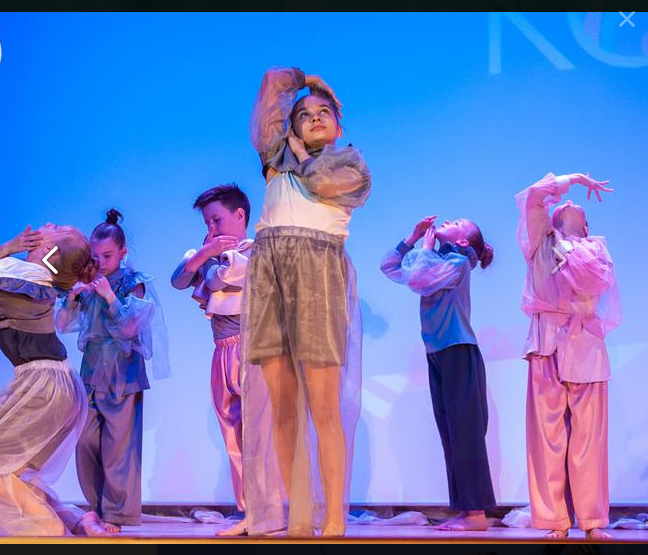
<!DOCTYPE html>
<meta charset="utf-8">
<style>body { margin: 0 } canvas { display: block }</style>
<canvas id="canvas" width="648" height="555"></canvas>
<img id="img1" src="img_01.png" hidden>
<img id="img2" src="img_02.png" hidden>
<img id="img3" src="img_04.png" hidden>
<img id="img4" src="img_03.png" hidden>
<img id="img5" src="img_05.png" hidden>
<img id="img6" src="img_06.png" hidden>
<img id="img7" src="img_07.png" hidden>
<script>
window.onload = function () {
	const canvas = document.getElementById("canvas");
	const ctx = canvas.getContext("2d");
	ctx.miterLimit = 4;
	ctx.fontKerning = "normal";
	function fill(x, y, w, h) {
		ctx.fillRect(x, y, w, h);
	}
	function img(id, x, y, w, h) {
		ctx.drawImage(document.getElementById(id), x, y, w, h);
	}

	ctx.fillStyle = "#191918";
	fill(0, 0, 648, 555);
	img("img1", 0, 0, 2, 12);
	img("img2", 2, 0, 646, 12);
	img("img3", 0, 12, 648, 532);
	img("img4", 619, 11, 16, 16);
	img("img5", 40, 245, 20, 31);
	img("img6", 550, 245, 18, 31);
	img("img7", 157, 544, 491, 11);
};
</script>
